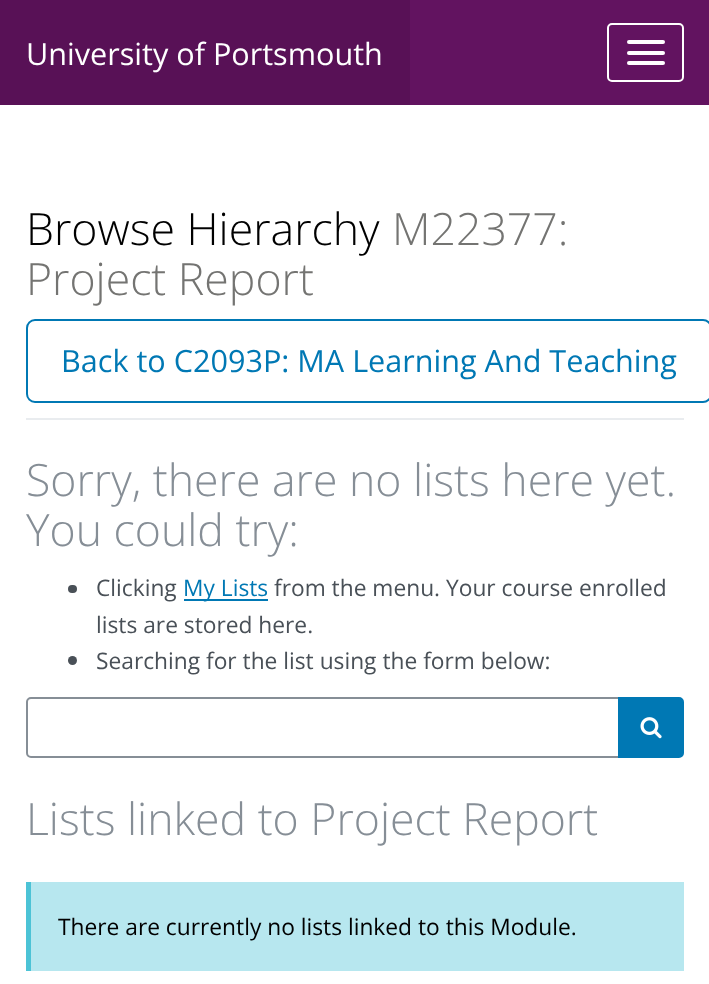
<!DOCTYPE html>
<meta charset="utf-8">
<style>body { margin: 0 } canvas { display: block }</style>
<canvas id="canvas" width="709" height="984"></canvas>
<img id="img1" src="img_01.png" hidden>
<script>
window.onload = function () {
	const canvas = document.getElementById("canvas");
	const ctx = canvas.getContext("2d");
	ctx.miterLimit = 4;
	ctx.fontKerning = "normal";
	function txt(s, x, y) {
		ctx.fillText(s, x, y);
	}
	function fill(x, y, w, h) {
		ctx.fillRect(x, y, w, h);
	}
	function round(x, y, w, h, r) {
		ctx.beginPath();
		ctx.roundRect(x, y, w, h, r);
		ctx.fill();
	}
	function img(id, x, y, w, h) {
		ctx.drawImage(document.getElementById(id), x, y, w, h);
	}

	ctx.fillStyle = "#FFFFFF";
	fill(0, 0, 709, 984);
	ctx.fillStyle = "#621360";
	fill(410, 0, 299, 105);
	ctx.fillStyle = "#581156";
	fill(0, 0, 410, 105);
	ctx.beginPath();
	ctx.roundRect(608, 24, 75, 57, 4);
	ctx.strokeStyle = "#FFFFFF";
	ctx.lineWidth = 2;
	ctx.stroke();
	ctx.fillStyle = "#FFFFFF";
	round(627, 40, 38, 4, 2);
	round(627, 51, 38, 4, 2);
	round(627, 61, 38, 4, 2);
	ctx.fillStyle = "#E9ECEF";
	fill(26, 418, 658, 2);
	ctx.beginPath();
	ctx.roundRect(27, 320, 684, 82, 8);
	ctx.strokeStyle = "#0078B4";
	ctx.stroke();
	ctx.fillStyle = "#495057";
	round(68, 585, 9, 8, 4);
	ctx.fillStyle = "#0078B4";
	fill(184, 599, 84, 2);
	ctx.fillStyle = "#495057";
	ctx.beginPath();
	ctx.arc(72.5, 660.5, 4.5, 0, Math.PI * 2);
	ctx.fill();
	ctx.beginPath();
	ctx.roundRect(27, 698, 592, 59, [4, 0, 0, 4]);
	ctx.strokeStyle = "#868E96";
	ctx.stroke();
	ctx.fillStyle = "#0078B4";
	ctx.beginPath();
	ctx.roundRect(619, 698, 64, 59, [0, 4, 4, 0]);
	ctx.fill();
	ctx.strokeStyle = "#0078B4";
	ctx.stroke();
	img("img1", 640, 717, 22, 22);
	ctx.fillStyle = "#B7E7EF";
	fill(31, 882, 653, 89);
	ctx.fillStyle = "#4CC3D6";
	fill(26, 882, 5, 89);
	ctx.font = "30.6px Open Sans";
	ctx.fillStyle = "#FFFFFF";
	txt("University of Portsmouth", 26, 65);
	ctx.font = "300 44.6px Open Sans";
	ctx.fillStyle = "#000000";
	txt("Browse Hierarchy", 26, 245);
	ctx.fillStyle = "#747472";
	txt("M22377:", 392, 245);
	txt("Project Report", 26, 295);
	ctx.font = "30.6px Open Sans";
	ctx.fillStyle = "#0078B4";
	txt("Back to C2093P: MA Learning And Teaching", 61, 372);
	ctx.font = "300 44.6px Open Sans";
	ctx.fillStyle = "#868E96";
	txt("Sorry, there are no lists here yet.", 26, 496);
	txt("You could try:", 26, 546);
	ctx.font = "22.75px Open Sans";
	ctx.fillStyle = "#495057";
	txt("Clicking", 96, 596);
	ctx.fillStyle = "#0078B4";
	txt("My Lists", 183, 596);
	ctx.fillStyle = "#495057";
	txt("from the menu. Your course enrolled", 274, 596);
	txt("lists are stored here.", 96, 633);
	txt("Searching for the list using the form below:", 96, 669);
	ctx.font = "300 44.6px Open Sans";
	ctx.fillStyle = "#868E96";
	txt("Lists linked to Project Report", 26, 835);
	ctx.font = "22.75px Open Sans";
	ctx.fillStyle = "#000000";
	txt("There are currently no lists linked to this Module.", 58, 935);
};
</script>
